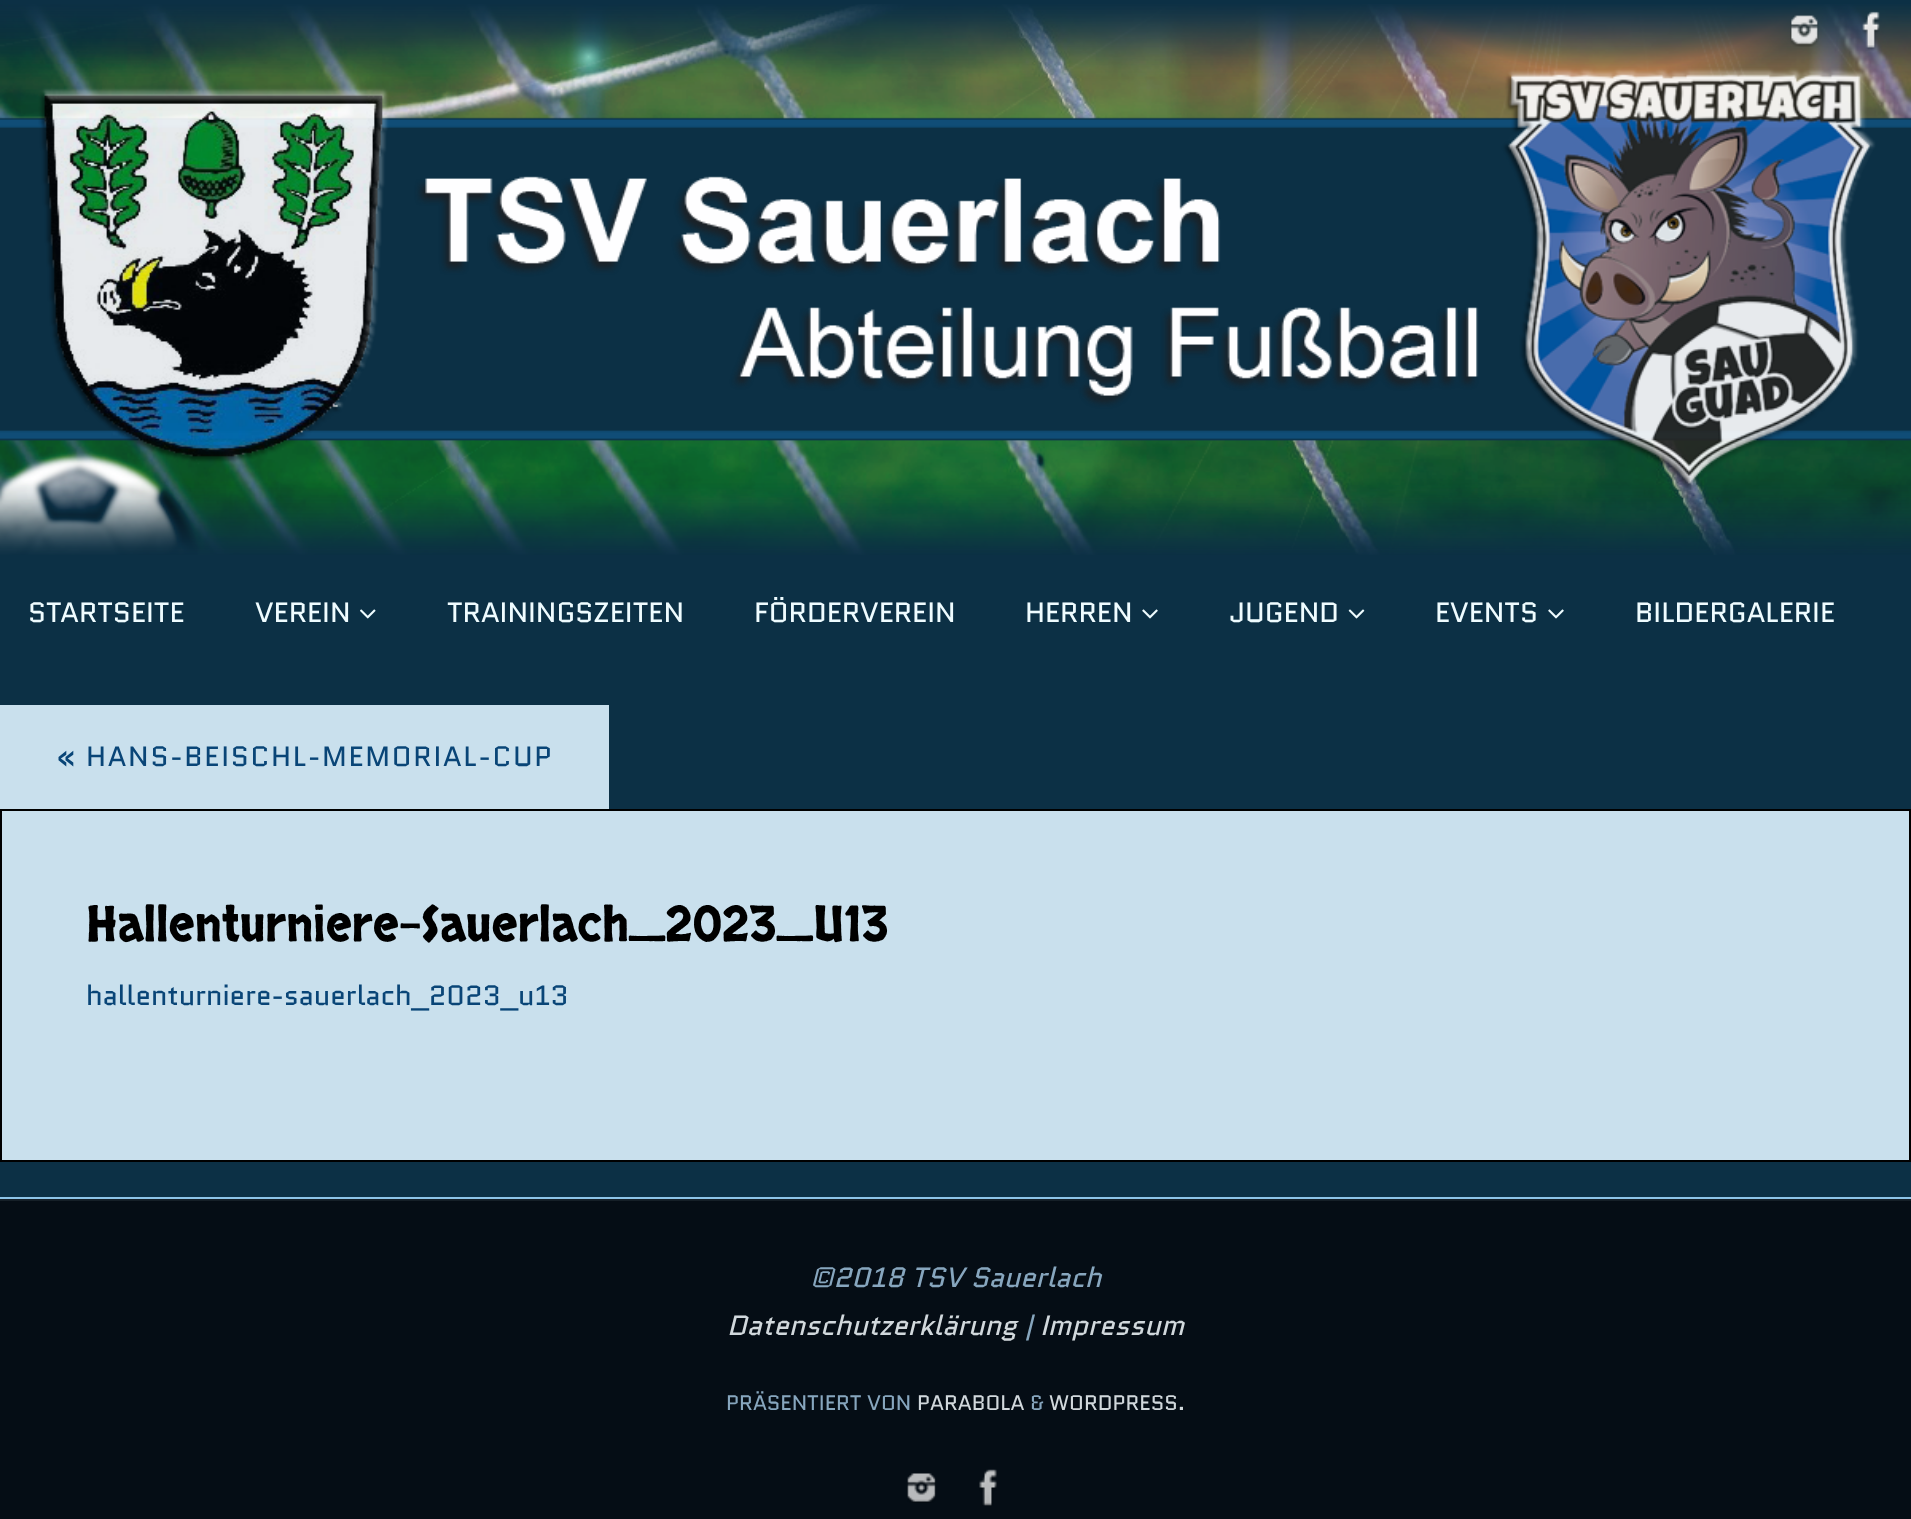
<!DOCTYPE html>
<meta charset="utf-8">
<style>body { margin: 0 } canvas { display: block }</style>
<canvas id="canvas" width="1911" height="1519"></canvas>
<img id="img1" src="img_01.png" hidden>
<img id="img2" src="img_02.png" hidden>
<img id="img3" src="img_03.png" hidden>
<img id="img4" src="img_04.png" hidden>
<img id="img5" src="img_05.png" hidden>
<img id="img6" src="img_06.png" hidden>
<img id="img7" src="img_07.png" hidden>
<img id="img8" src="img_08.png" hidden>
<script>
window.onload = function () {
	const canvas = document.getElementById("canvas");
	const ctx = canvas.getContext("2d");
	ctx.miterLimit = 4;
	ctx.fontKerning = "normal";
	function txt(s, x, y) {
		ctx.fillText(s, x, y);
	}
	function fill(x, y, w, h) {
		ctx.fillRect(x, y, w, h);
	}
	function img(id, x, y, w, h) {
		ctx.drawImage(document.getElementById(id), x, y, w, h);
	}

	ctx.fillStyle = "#0C3045";
	fill(0, 0, 1911, 1519);
	img("img1", 0, 4, 1911, 551);
	img("img2", 1790, 15, 29, 32);
	img("img3", 1862, 11, 18, 40);
	img("img4", 360, 609, 16, 10);
	img("img5", 1142, 609, 16, 10);
	img("img6", 1348, 609, 17, 10);
	img("img5", 1548, 609, 16, 10);
	ctx.fillStyle = "#C9E0ED";
	fill(0, 705, 609, 104);
	ctx.beginPath();
	ctx.rect(1, 810, 1909, 351);
	ctx.fill();
	ctx.strokeStyle = "#000000";
	ctx.lineWidth = 2;
	ctx.stroke();
	ctx.fillStyle = "#8DC4E8";
	fill(0, 1197, 1911, 2);
	ctx.fillStyle = "#050D15";
	fill(0, 1201, 1911, 318);
	ctx.fillStyle = "#151F27";
	fill(0, 1199, 1911, 2);
	img("img7", 907, 1473, 29, 30);
	img("img8", 979, 1469, 18, 37);
	ctx.font = "28px Quantico";
	ctx.fillStyle = "#EFFCFF";
	txt("STARTSEITE", 28, 622);
	txt("VEREIN", 255, 622);
	txt("TRAININGSZEITEN", 447, 622);
	txt("FÖRDERVEREIN", 754, 622);
	txt("HERREN", 1025, 622);
	txt("JUGEND", 1230, 622);
	txt("EVENTS", 1435, 622);
	txt("BILDERGALERIE", 1635, 622);
	ctx.letterSpacing = "1.75px";
	ctx.font = "bold 28px Quantico";
	ctx.fillStyle = "#094577";
	txt("«", 56, 766);
	ctx.font = "28px Quantico";
	txt("HANS-BEISCHL-MEMORIAL-CUP", 86, 766);
	ctx.letterSpacing = "0px";
	ctx.font = "49px Skranji";
	ctx.fillStyle = "#000000";
	txt("Hallenturniere-Sauerlach_2023_U13", 86, 941);
	ctx.font = "28px Quantico";
	ctx.fillStyle = "#094577";
	txt("hallenturniere-sauerlach_2023_u13", 86, 1005);
	ctx.font = "italic 28px Quantico";
	ctx.fillStyle = "#87A6BE";
	txt("©2018 TSV Sauerlach", 810, 1287);
	ctx.fillStyle = "#D1D8DC";
	txt("Datenschutzerklärung", 727, 1335);
	ctx.fillStyle = "#87A6BE";
	txt("|", 1024, 1335);
	ctx.fillStyle = "#D1D8DC";
	txt("Impressum", 1040, 1335);
	ctx.font = "21px Quantico";
	ctx.fillStyle = "#87A6BE";
	txt("PRÄSENTIERT VON", 726, 1410);
	ctx.fillStyle = "#D1D8DC";
	txt("PARABOLA", 917, 1410);
	ctx.fillStyle = "#87A6BE";
	txt("&", 1030, 1410);
	ctx.fillStyle = "#D1D8DC";
	txt("WORDPRESS.", 1049, 1410);
};
</script>
